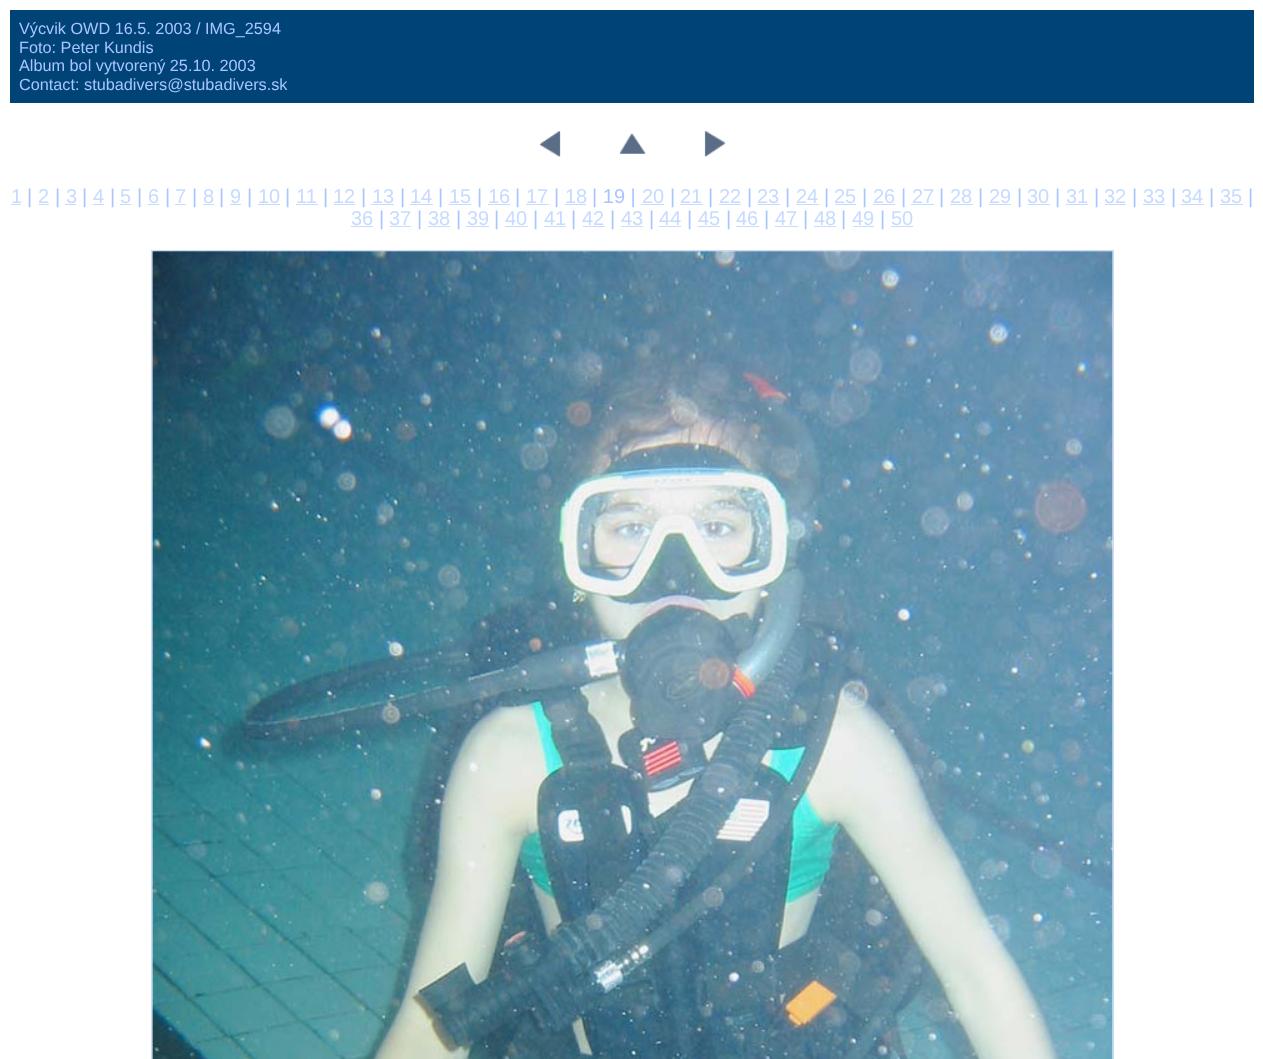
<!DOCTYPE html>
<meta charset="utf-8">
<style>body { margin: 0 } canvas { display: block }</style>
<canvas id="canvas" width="1263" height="1059"></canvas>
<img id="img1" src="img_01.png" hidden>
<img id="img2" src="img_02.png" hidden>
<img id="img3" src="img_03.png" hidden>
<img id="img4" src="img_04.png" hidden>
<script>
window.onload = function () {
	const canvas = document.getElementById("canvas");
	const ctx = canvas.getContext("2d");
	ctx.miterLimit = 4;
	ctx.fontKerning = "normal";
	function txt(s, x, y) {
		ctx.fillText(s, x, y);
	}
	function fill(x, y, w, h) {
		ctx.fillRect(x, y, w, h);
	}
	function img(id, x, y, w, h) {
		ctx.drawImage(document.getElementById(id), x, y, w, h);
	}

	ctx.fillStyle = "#FFFFFF";
	fill(0, 0, 1263, 1059);
	ctx.fillStyle = "#004377";
	fill(10, 10, 1244, 93);
	img("img1", 539, 131, 22, 26);
	img("img2", 619, 133, 27, 21);
	img("img3", 704, 131, 22, 26);
	ctx.fillStyle = "#C6DBFF";
	fill(11, 204, 10, 1);
	fill(39, 204, 10, 1);
	fill(65, 204, 11, 1);
	fill(93, 204, 11, 1);
	fill(120, 204, 11, 1);
	fill(148, 204, 11, 1);
	fill(175, 204, 11, 1);
	fill(203, 204, 11, 1);
	fill(230, 204, 11, 1);
	fill(258, 204, 22, 1);
	fill(296, 204, 22, 1);
	fill(334, 204, 21, 1);
	fill(371, 204, 23, 1);
	fill(410, 204, 23, 1);
	fill(449, 204, 22, 1);
	fill(488, 204, 22, 1);
	fill(526, 204, 23, 1);
	fill(565, 204, 21, 1);
	fill(641, 204, 23, 1);
	fill(680, 204, 23, 1);
	fill(719, 204, 22, 1);
	fill(758, 204, 22, 1);
	fill(796, 204, 23, 1);
	fill(835, 204, 21, 1);
	fill(873, 204, 22, 1);
	fill(911, 204, 23, 1);
	fill(950, 204, 23, 1);
	fill(989, 204, 22, 1);
	fill(1028, 204, 22, 1);
	fill(1066, 204, 22, 1);
	fill(1105, 204, 21, 1);
	fill(1143, 204, 22, 1);
	fill(1181, 204, 23, 1);
	fill(1220, 204, 23, 1);
	fill(351, 226, 22, 1);
	fill(390, 226, 21, 1);
	fill(428, 226, 22, 1);
	fill(466, 226, 23, 1);
	fill(505, 226, 23, 1);
	fill(544, 226, 22, 1);
	fill(583, 226, 22, 1);
	fill(621, 226, 22, 1);
	fill(659, 226, 22, 1);
	fill(698, 226, 22, 1);
	fill(736, 226, 23, 1);
	fill(775, 226, 23, 1);
	fill(814, 226, 22, 1);
	fill(853, 226, 21, 1);
	fill(891, 226, 22, 1);
	ctx.strokeStyle = "#C6DBFF";
	ctx.strokeRect(151.5, 250.5, 962, 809);
	img("img4", 152, 251, 961, 808);
	ctx.font = "16.25px Liberation Sans";
	ctx.fillStyle = "#A9C5FF";
	txt("Výcvik OWD 16.5. 2003 / IMG_2594", 19, 34);
	txt("Foto: Peter Kundis", 19, 53);
	txt("Album bol vytvorený 25.10. 2003", 19, 71);
	txt("Contact: stubadivers@stubadivers.sk", 19, 90);
	ctx.font = "20px Liberation Sans";
	ctx.fillStyle = "#C6DBFF";
	txt("1", 11, 203);
	ctx.fillStyle = "#A9C5FF";
	txt("|", 27, 203);
	ctx.fillStyle = "#C6DBFF";
	txt("2", 38, 203);
	ctx.fillStyle = "#A9C5FF";
	txt("|", 55, 203);
	ctx.fillStyle = "#C6DBFF";
	txt("3", 66, 203);
	ctx.fillStyle = "#A9C5FF";
	txt("|", 82, 203);
	ctx.fillStyle = "#C6DBFF";
	txt("4", 93, 203);
	ctx.fillStyle = "#A9C5FF";
	txt("|", 110, 203);
	ctx.fillStyle = "#C6DBFF";
	txt("5", 120, 203);
	ctx.fillStyle = "#A9C5FF";
	txt("|", 137, 203);
	ctx.fillStyle = "#C6DBFF";
	txt("6", 148, 203);
	ctx.fillStyle = "#A9C5FF";
	txt("|", 165, 203);
	ctx.fillStyle = "#C6DBFF";
	txt("7", 175, 203);
	ctx.fillStyle = "#A9C5FF";
	txt("|", 192, 203);
	ctx.fillStyle = "#C6DBFF";
	txt("8", 203, 203);
	ctx.fillStyle = "#A9C5FF";
	txt("|", 219, 203);
	ctx.fillStyle = "#C6DBFF";
	txt("9", 230, 203);
	ctx.fillStyle = "#A9C5FF";
	txt("|", 247, 203);
	ctx.fillStyle = "#C6DBFF";
	txt("10", 258, 203);
	ctx.fillStyle = "#A9C5FF";
	txt("|", 285, 203);
	ctx.fillStyle = "#C6DBFF";
	txt("11", 296, 203);
	ctx.fillStyle = "#A9C5FF";
	txt("|", 323, 203);
	ctx.fillStyle = "#C6DBFF";
	txt("12", 333, 203);
	ctx.fillStyle = "#A9C5FF";
	txt("|", 361, 203);
	ctx.fillStyle = "#C6DBFF";
	txt("13", 372, 203);
	ctx.fillStyle = "#A9C5FF";
	txt("|", 400, 203);
	ctx.fillStyle = "#C6DBFF";
	txt("14", 410, 203);
	ctx.fillStyle = "#A9C5FF";
	txt("|", 438, 203);
	ctx.fillStyle = "#C6DBFF";
	txt("15", 449, 203);
	ctx.fillStyle = "#A9C5FF";
	txt("|", 477, 203);
	ctx.fillStyle = "#C6DBFF";
	txt("16", 488, 203);
	ctx.fillStyle = "#A9C5FF";
	txt("|", 515, 203);
	ctx.fillStyle = "#C6DBFF";
	txt("17", 526, 203);
	ctx.fillStyle = "#A9C5FF";
	txt("|", 554, 203);
	ctx.fillStyle = "#C6DBFF";
	txt("18", 565, 203);
	ctx.fillStyle = "#A9C5FF";
	txt("| 19 |", 592, 203);
	ctx.fillStyle = "#C6DBFF";
	txt("20", 642, 203);
	ctx.fillStyle = "#A9C5FF";
	txt("|", 670, 203);
	ctx.fillStyle = "#C6DBFF";
	txt("21", 680, 203);
	ctx.fillStyle = "#A9C5FF";
	txt("|", 708, 203);
	ctx.fillStyle = "#C6DBFF";
	txt("22", 719, 203);
	ctx.fillStyle = "#A9C5FF";
	txt("|", 747, 203);
	ctx.fillStyle = "#C6DBFF";
	txt("23", 757, 203);
	ctx.fillStyle = "#A9C5FF";
	txt("|", 785, 203);
	ctx.fillStyle = "#C6DBFF";
	txt("24", 796, 203);
	ctx.fillStyle = "#A9C5FF";
	txt("|", 824, 203);
	ctx.fillStyle = "#C6DBFF";
	txt("25", 834, 203);
	ctx.fillStyle = "#A9C5FF";
	txt("|", 862, 203);
	ctx.fillStyle = "#C6DBFF";
	txt("26", 873, 203);
	ctx.fillStyle = "#A9C5FF";
	txt("|", 901, 203);
	ctx.fillStyle = "#C6DBFF";
	txt("27", 912, 203);
	ctx.fillStyle = "#A9C5FF";
	txt("|", 939, 203);
	ctx.fillStyle = "#C6DBFF";
	txt("28", 950, 203);
	ctx.fillStyle = "#A9C5FF";
	txt("|", 978, 203);
	ctx.fillStyle = "#C6DBFF";
	txt("29", 989, 203);
	ctx.fillStyle = "#A9C5FF";
	txt("|", 1017, 203);
	ctx.fillStyle = "#C6DBFF";
	txt("30", 1027, 203);
	ctx.fillStyle = "#A9C5FF";
	txt("|", 1055, 203);
	ctx.fillStyle = "#C6DBFF";
	txt("31", 1066, 203);
	ctx.fillStyle = "#A9C5FF";
	txt("|", 1094, 203);
	ctx.fillStyle = "#C6DBFF";
	txt("32", 1104, 203);
	ctx.fillStyle = "#A9C5FF";
	txt("|", 1132, 203);
	ctx.fillStyle = "#C6DBFF";
	txt("33", 1143, 203);
	ctx.fillStyle = "#A9C5FF";
	txt("|", 1171, 203);
	ctx.fillStyle = "#C6DBFF";
	txt("34", 1181, 203);
	ctx.fillStyle = "#A9C5FF";
	txt("|", 1209, 203);
	ctx.fillStyle = "#C6DBFF";
	txt("35", 1220, 203);
	ctx.fillStyle = "#A9C5FF";
	txt("|", 1248, 203);
	ctx.fillStyle = "#C6DBFF";
	txt("36", 351, 225);
	ctx.fillStyle = "#A9C5FF";
	txt("|", 379, 225);
	ctx.fillStyle = "#C6DBFF";
	txt("37", 389, 225);
	ctx.fillStyle = "#A9C5FF";
	txt("|", 417, 225);
	ctx.fillStyle = "#C6DBFF";
	txt("38", 428, 225);
	ctx.fillStyle = "#A9C5FF";
	txt("|", 456, 225);
	ctx.fillStyle = "#C6DBFF";
	txt("39", 467, 225);
	ctx.fillStyle = "#A9C5FF";
	txt("|", 494, 225);
	ctx.fillStyle = "#C6DBFF";
	txt("40", 505, 225);
	ctx.fillStyle = "#A9C5FF";
	txt("|", 533, 225);
	ctx.fillStyle = "#C6DBFF";
	txt("41", 544, 225);
	ctx.fillStyle = "#A9C5FF";
	txt("|", 571, 225);
	ctx.fillStyle = "#C6DBFF";
	txt("42", 582, 225);
	ctx.fillStyle = "#A9C5FF";
	txt("|", 610, 225);
	ctx.fillStyle = "#C6DBFF";
	txt("43", 621, 225);
	ctx.fillStyle = "#A9C5FF";
	txt("|", 649, 225);
	ctx.fillStyle = "#C6DBFF";
	txt("44", 659, 225);
	ctx.fillStyle = "#A9C5FF";
	txt("|", 687, 225);
	ctx.fillStyle = "#C6DBFF";
	txt("45", 698, 225);
	ctx.fillStyle = "#A9C5FF";
	txt("|", 726, 225);
	ctx.fillStyle = "#C6DBFF";
	txt("46", 736, 225);
	ctx.fillStyle = "#A9C5FF";
	txt("|", 764, 225);
	ctx.fillStyle = "#C6DBFF";
	txt("47", 775, 225);
	ctx.fillStyle = "#A9C5FF";
	txt("|", 803, 225);
	ctx.fillStyle = "#C6DBFF";
	txt("48", 814, 225);
	ctx.fillStyle = "#A9C5FF";
	txt("|", 841, 225);
	ctx.fillStyle = "#C6DBFF";
	txt("49", 852, 225);
	ctx.fillStyle = "#A9C5FF";
	txt("|", 880, 225);
	ctx.fillStyle = "#C6DBFF";
	txt("50", 891, 225);
};
</script>
